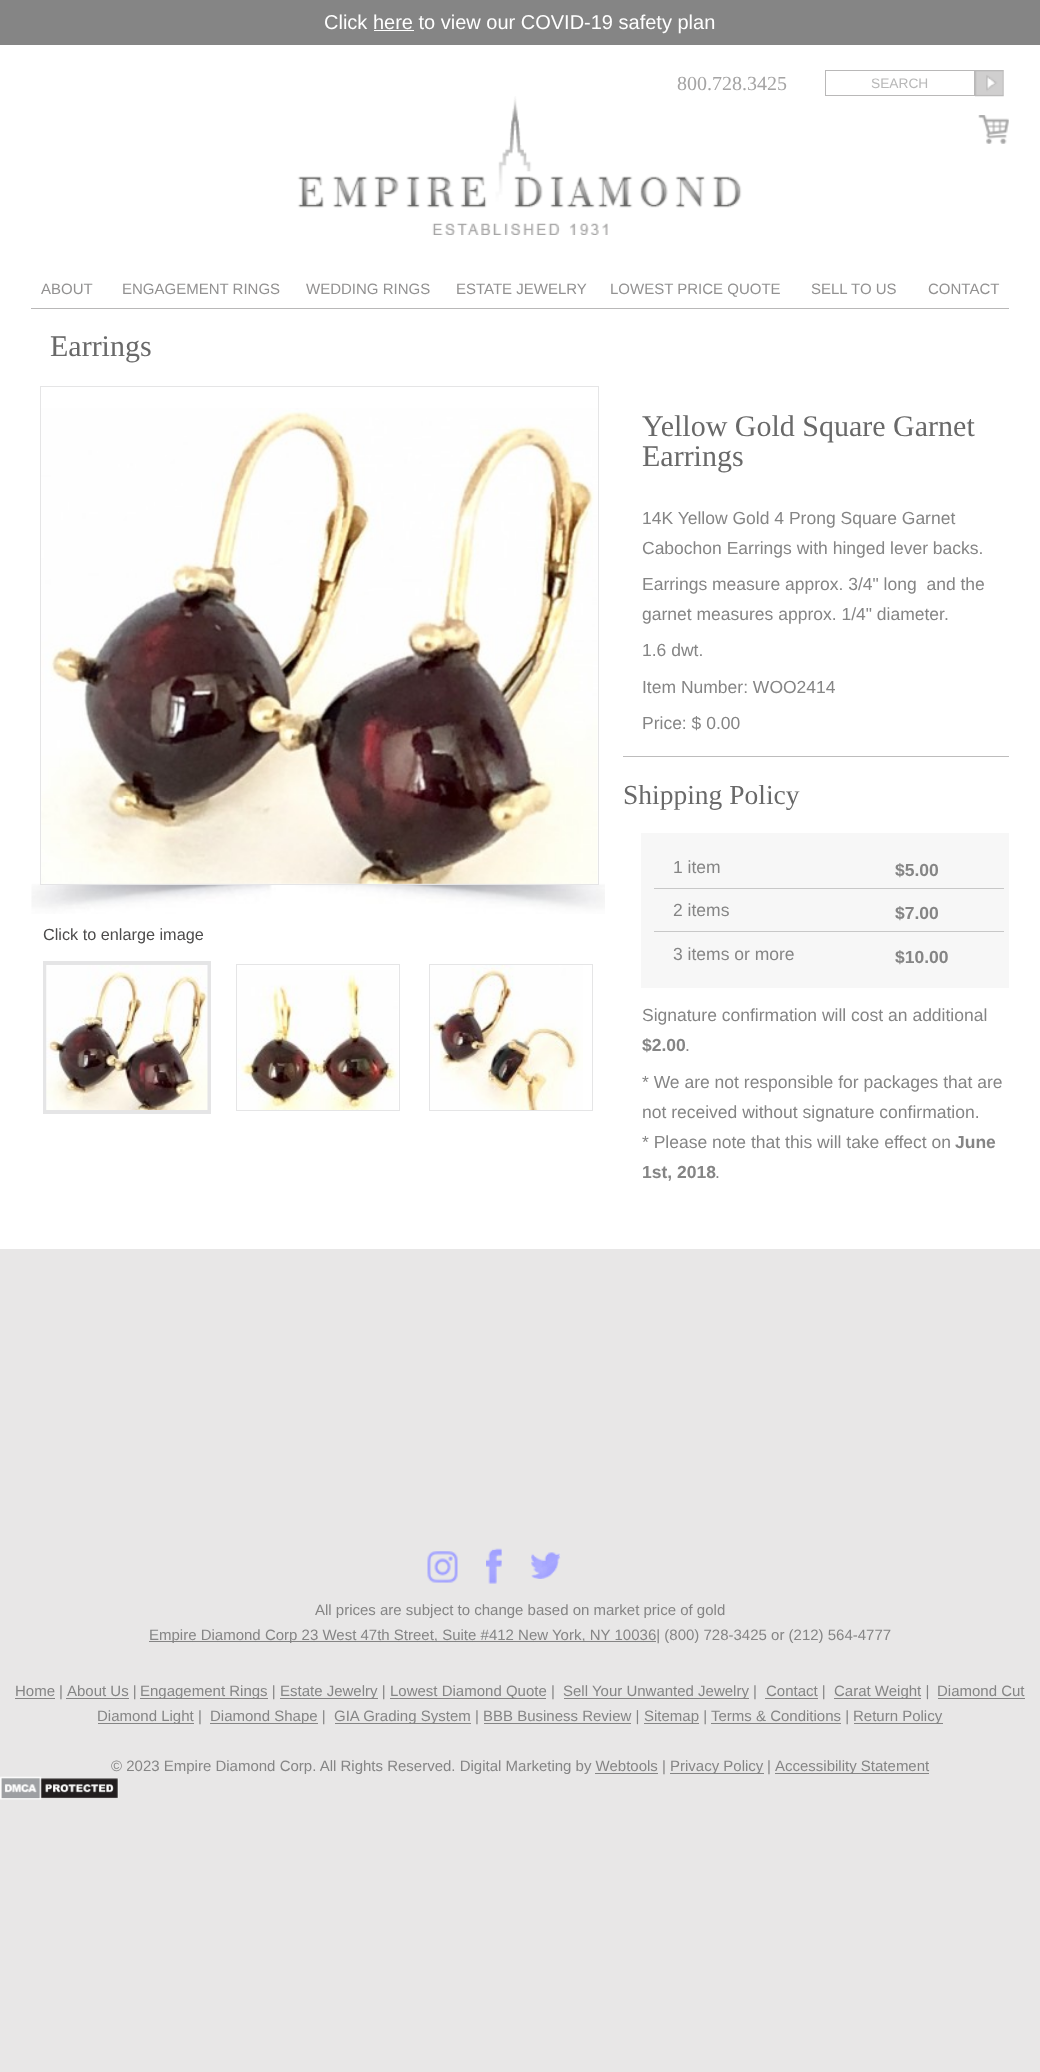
<!DOCTYPE html>
<meta charset="utf-8">
<style>body { margin: 0 } canvas { display: block }</style>
<canvas id="canvas" width="1040" height="2072"></canvas>
<img id="img1" src="img_01.png" hidden>
<img id="img2" src="img_02.png" hidden>
<img id="img3" src="img_03.png" hidden>
<img id="img4" src="img_04.png" hidden>
<img id="img5" src="img_05.png" hidden>
<img id="img6" src="img_06.png" hidden>
<img id="img7" src="img_07.png" hidden>
<img id="img8" src="img_08.png" hidden>
<img id="img9" src="img_09.png" hidden>
<img id="img10" src="img_10.png" hidden>
<img id="img11" src="img_11.png" hidden>
<img id="img12" src="img_12.png" hidden>
<script>
window.onload = function () {
	const canvas = document.getElementById("canvas");
	const ctx = canvas.getContext("2d");
	ctx.miterLimit = 4;
	ctx.fontKerning = "normal";
	function txt(s, x, y) {
		ctx.fillText(s, x, y);
	}
	function fill(x, y, w, h) {
		ctx.fillRect(x, y, w, h);
	}
	function img(id, x, y, w, h) {
		ctx.drawImage(document.getElementById(id), x, y, w, h);
	}

	ctx.fillStyle = "#E8E7E7";
	fill(0, 0, 1040, 2072);
	ctx.fillStyle = "#858585";
	fill(0, 0, 1040, 45);
	ctx.fillStyle = "#FFFFFF";
	fill(374, 30, 40, 1);
	fill(0, 45, 1040, 1204);
	ctx.strokeStyle = "#B9B8B8";
	ctx.strokeRect(825.5, 70.5, 149, 25);
	img("img1", 975, 70, 29, 27);
	img("img2", 978, 115, 31, 29);
	img("img3", 297, 96, 445, 139);
	ctx.fillStyle = "#B9B8B8";
	fill(31, 308, 978, 1);
	img("img4", 31, 883, 574, 31);
	ctx.strokeStyle = "#E5E5E6";
	ctx.strokeRect(40.5, 386.5, 558, 498);
	img("img5", 41, 408, 557, 476);
	ctx.lineWidth = 4;
	ctx.strokeRect(45, 963, 164, 149);
	img("img6", 46, 965, 162, 145);
	ctx.lineWidth = 1;
	ctx.strokeRect(236.5, 964.5, 163, 146);
	img("img7", 237, 970, 161, 140);
	ctx.strokeRect(429.5, 964.5, 163, 146);
	img("img8", 430, 965, 153, 145);
	ctx.fillStyle = "#BDBCBC";
	fill(623, 756, 386, 1);
	ctx.fillStyle = "#F7F7F7";
	fill(641, 833, 368, 155);
	ctx.fillStyle = "#C8C8C8";
	fill(654, 888, 350, 1);
	fill(654, 931, 350, 1);
	img("img9", 427, 1551, 31, 32);
	img("img10", 486, 1548, 16, 36);
	img("img11", 531, 1552, 30, 27);
	ctx.fillStyle = "#858585";
	fill(149, 1641, 507, 1);
	fill(15, 1698, 40, 1);
	fill(66, 1698, 63, 1);
	fill(140, 1698, 128, 1);
	fill(280, 1698, 98, 1);
	fill(390, 1698, 156, 1);
	fill(564, 1698, 185, 1);
	fill(765, 1698, 53, 1);
	fill(834, 1698, 87, 1);
	fill(938, 1698, 87, 1);
	fill(98, 1723, 96, 1);
	fill(210, 1723, 108, 1);
	fill(335, 1723, 136, 1);
	fill(644, 1723, 55, 1);
	fill(854, 1723, 89, 1);
	fill(484, 1723, 147, 1);
	fill(711, 1723, 130, 1);
	fill(670, 1773, 94, 1);
	fill(775, 1773, 154, 1);
	fill(595, 1773, 63, 1);
	img("img12", 0, 1776, 119, 24);
	ctx.font = "20px Liberation Sans";
	ctx.fillStyle = "#FFFFFF";
	txt("Click here to view our COVID-19 safety plan", 324, 29);
	ctx.font = "20px Liberation Serif";
	ctx.fillStyle = "#A5A4A4";
	txt("800.728.3425", 677, 90);
	ctx.font = "13.75px Liberation Sans";
	ctx.fillStyle = "#B8B8B8";
	txt("SEARCH", 871, 88);
	ctx.font = "15px Liberation Sans";
	ctx.fillStyle = "#929191";
	txt("ABOUT", 41, 294);
	txt("ENGAGEMENT RINGS", 122, 294);
	txt("WEDDING RINGS", 306, 294);
	txt("ESTATE JEWELRY", 456, 294);
	txt("LOWEST PRICE QUOTE", 610, 294);
	txt("SELL TO US", 811, 294);
	txt("CONTACT", 928, 294);
	ctx.font = "30px Liberation Serif";
	ctx.fillStyle = "#696969";
	txt("Earrings", 50, 356);
	ctx.font = "16.25px Liberation Sans";
	ctx.fillStyle = "#4C4B4B";
	txt("Click to enlarge image", 43, 940);
	ctx.font = "30px Liberation Serif";
	ctx.fillStyle = "#696969";
	txt("Yellow Gold Square Garnet", 642, 436);
	txt("Earrings", 642, 466);
	ctx.font = "17.5px Liberation Sans";
	ctx.fillStyle = "#858585";
	txt("14K Yellow Gold 4 Prong Square Garnet", 642, 524);
	txt("Cabochon Earrings with hinged lever backs.", 642, 554);
	txt("Earrings measure approx. 3/4\" long  and the", 642, 590);
	txt("garnet measures approx. 1/4\" diameter.", 642, 620);
	txt("1.6 dwt.", 642, 656);
	txt("Item Number: WOO2414", 642, 693);
	txt("Price: $ 0.00", 642, 729);
	ctx.font = "27.5px Liberation Serif";
	ctx.fillStyle = "#696969";
	txt("Shipping Policy", 623, 804);
	ctx.font = "17.5px Liberation Sans";
	ctx.fillStyle = "#858585";
	txt("1 item", 673, 873);
	ctx.font = "bold 17.5px Liberation Sans";
	txt("$5.00", 895, 876);
	ctx.font = "17.5px Liberation Sans";
	txt("2 items", 673, 916);
	ctx.font = "bold 17.5px Liberation Sans";
	txt("$7.00", 895, 919);
	ctx.font = "17.5px Liberation Sans";
	txt("3 items or more", 673, 960);
	ctx.font = "bold 17.5px Liberation Sans";
	txt("$10.00", 895, 963);
	ctx.font = "17.5px Liberation Sans";
	txt("Signature confirmation will cost an additional", 642, 1021);
	ctx.font = "bold 17.5px Liberation Sans";
	txt("$2.00", 642, 1051);
	ctx.font = "17.5px Liberation Sans";
	txt(".", 685, 1051);
	txt("* We are not responsible for packages that are", 642, 1088);
	txt("not received without signature confirmation.", 642, 1118);
	txt("* Please note that this will take effect on", 642, 1148);
	ctx.font = "bold 17.5px Liberation Sans";
	txt("June", 955, 1148);
	txt("1st, 2018", 642, 1178);
	ctx.font = "17.5px Liberation Sans";
	txt(".", 715, 1178);
	ctx.font = "15px Liberation Sans";
	txt("All prices are subject to change based on market price of gold", 315, 1615);
	txt("Empire Diamond Corp 23 West 47th Street, Suite #412 New York, NY 10036| (800) 728-3425 or (212) 564-4777", 149, 1640);
	txt("Home", 15, 1696);
	txt("|", 59, 1696);
	txt("About Us |", 67, 1696);
	txt("Engagement Rings |", 140, 1696);
	txt("Estate Jewelry |", 280, 1696);
	txt("Lowest Diamond Quote |", 390, 1696);
	txt("Sell Your Unwanted Jewelry |", 563, 1696);
	txt("Contact |", 766, 1696);
	txt("Carat Weight |", 834, 1696);
	txt("Diamond Cut", 937, 1696);
	txt("Diamond Light |", 97, 1721);
	txt("Diamond Shape |", 210, 1721);
	txt("GIA Grading System | BBB Business Review |", 334, 1721);
	txt("Sitemap | Terms & Conditions |", 644, 1721);
	txt("Return Policy", 853, 1721);
	txt("© 2023 Empire Diamond Corp. All Rights Reserved. Digital Marketing by Webtools |", 111, 1771);
	txt("Privacy Policy", 670, 1771);
	txt("|", 767, 1771);
	txt("Accessibility Statement", 775, 1771);
};
</script>
